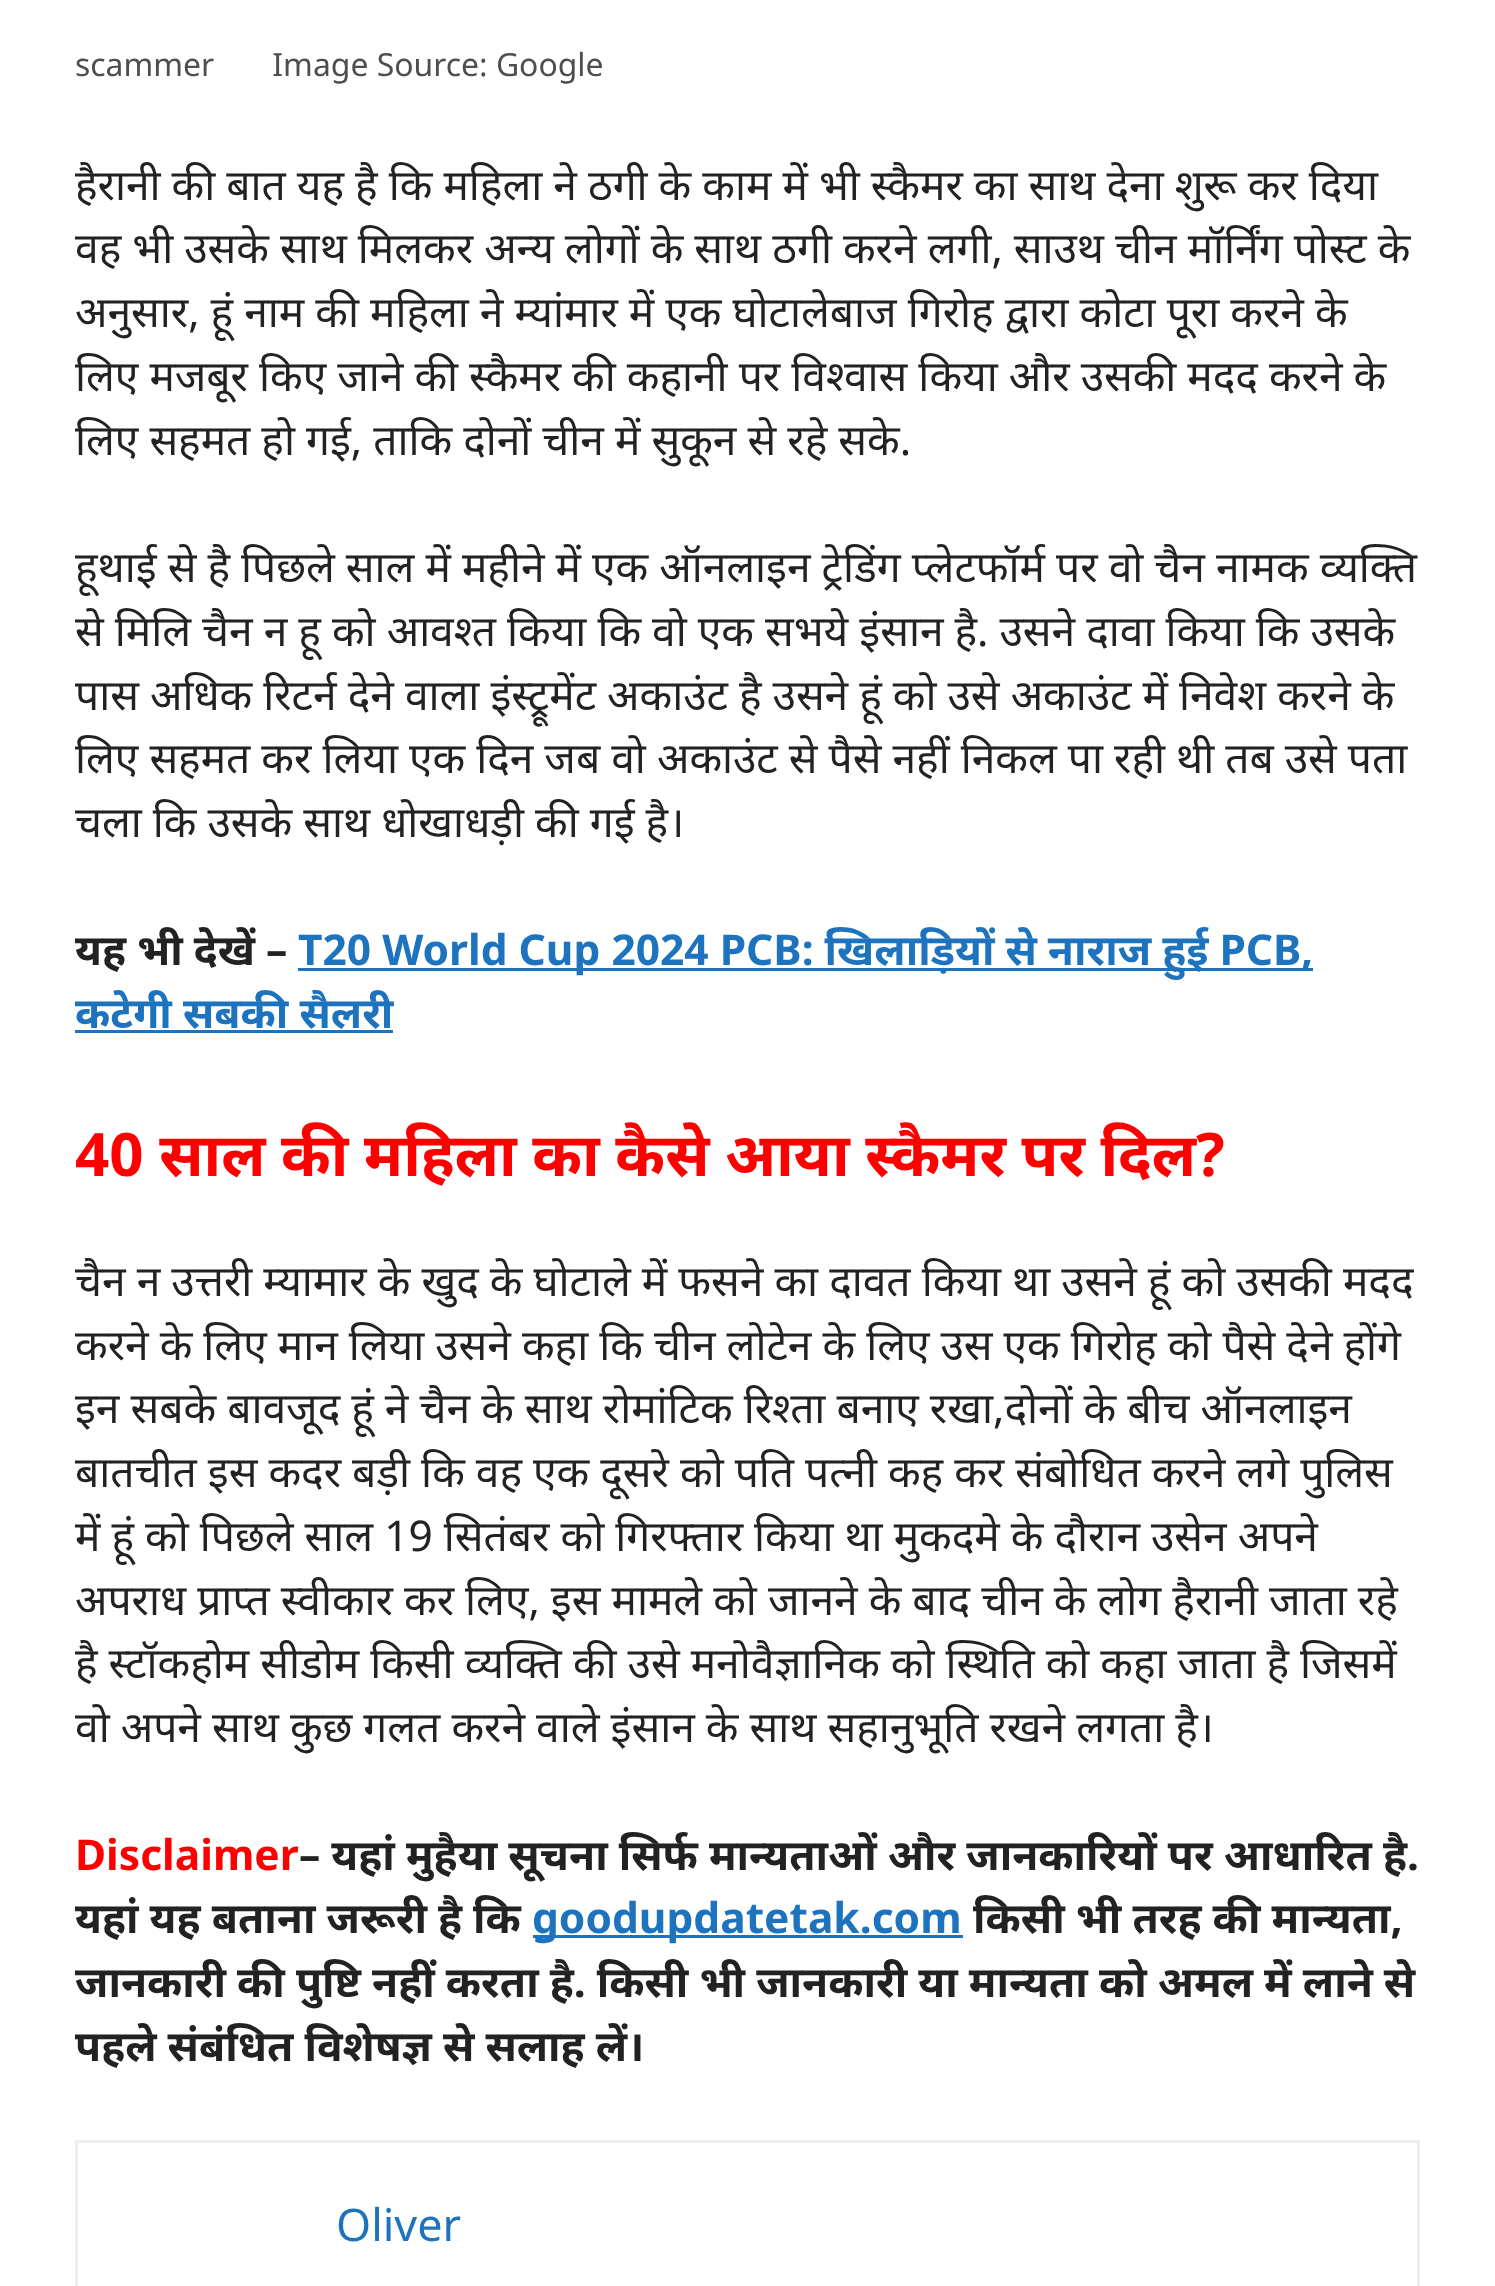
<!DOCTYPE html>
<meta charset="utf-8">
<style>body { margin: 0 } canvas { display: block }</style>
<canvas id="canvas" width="1495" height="2286"></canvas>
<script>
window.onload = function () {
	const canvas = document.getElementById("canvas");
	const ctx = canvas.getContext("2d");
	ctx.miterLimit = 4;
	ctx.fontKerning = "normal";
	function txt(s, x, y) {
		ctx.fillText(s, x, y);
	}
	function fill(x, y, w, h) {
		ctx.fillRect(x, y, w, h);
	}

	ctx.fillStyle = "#FFFFFF";
	fill(0, 0, 1495, 2286);
	ctx.fillStyle = "#1E73BE";
	fill(298, 968, 1015, 3);
	fill(75, 1030, 318, 3);
	fill(533, 1935, 430, 3);
	ctx.strokeStyle = "#EEEEEE";
	ctx.lineWidth = 3;
	ctx.strokeRect(76.5, 2141.5, 1342, 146);
	ctx.font = "31.9px Noto Sans";
	ctx.fillStyle = "#4E4E4E";
	txt("scammer       Image Source: Google", 75, 76);
	ctx.font = "42.5px Noto Sans";
	ctx.fillStyle = "#222222";
	txt("हैरानी की बात यह है कि महिला ने ठगी के काम में भी स्कैमर का साथ देना शुरू कर दिया", 75, 200);
	txt("वह भी उसके साथ मिलकर अन्य लोगों के साथ ठगी करने लगी, साउथ चीन मॉर्निंग पोस्ट के", 75, 263);
	txt("अनुसार, हूं नाम की महिला ने म्यांमार में एक घोटालेबाज गिरोह द्वारा कोटा पूरा करने के", 75, 327);
	txt("लिए मजबूर किए जाने की स्कैमर की कहानी पर विश्वास किया और उसकी मदद करने के", 75, 391);
	txt("लिए सहमत हो गई, ताकि दोनों चीन में सुकून से रहे सके.", 75, 455);
	txt("हूथाई से है पिछले साल में महीने में एक ऑनलाइन ट्रेडिंग प्लेटफॉर्म पर वो चैन नामक व्यक्ति", 75, 582);
	txt("से मिलि चैन न हू को आवश्त किया कि वो एक सभये इंसान है. उसने दावा किया कि उसके", 75, 646);
	txt("पास अधिक रिटर्न देने वाला इंस्ट्रूमेंट अकाउंट है उसने हूं को उसे अकाउंट में निवेश करने के", 75, 710);
	txt("लिए सहमत कर लिया एक दिन जब वो अकाउंट से पैसे नहीं निकल पा रही थी तब उसे पता", 75, 773);
	txt("चला कि उसके साथ धोखाधड़ी की गई है।", 75, 837);
	ctx.font = "bold 42.5px Noto Sans";
	txt("यह भी देखें –", 75, 965);
	ctx.fillStyle = "#1E73BE";
	txt("T20 World Cup 2024 PCB: खिलाड़ियों से नाराज हुई PCB,", 298, 965);
	txt("कटेगी सबकी सैलरी", 75, 1028);
	ctx.font = "bold 60px Noto Sans";
	ctx.fillStyle = "#FF0000";
	txt("40 साल की महिला का कैसे आया स्कैमर पर दिल?", 75, 1176);
	ctx.font = "42.5px Noto Sans";
	ctx.fillStyle = "#222222";
	txt("चैन न उत्तरी म्यामार के खुद के घोटाले में फसने का दावत किया था उसने हूं को उसकी मदद", 75, 1296);
	txt("करने के लिए मान लिया उसने कहा कि चीन लोटेन के लिए उस एक गिरोह को पैसे देने होंगे", 75, 1360);
	txt("इन सबके बावजूद हूं ने चैन के साथ रोमांटिक रिश्ता बनाए रखा,दोनों के बीच ऑनलाइन", 75, 1423);
	txt("बातचीत इस कदर बड़ी कि वह एक दूसरे को पति पत्नी कह कर संबोधित करने लगे पुलिस", 75, 1487);
	txt("में हूं को पिछले साल 19 सितंबर को गिरफ्तार किया था मुकदमे के दौरान उसेन अपने", 75, 1551);
	txt("अपराध प्राप्त स्वीकार कर लिए, इस मामले को जानने के बाद चीन के लोग हैरानी जाता रहे", 75, 1615);
	txt("है स्टॉकहोम सीडोम किसी व्यक्ति की उसे मनोवैज्ञानिक को स्थिति को कहा जाता है जिसमें", 75, 1678);
	txt("वो अपने साथ कुछ गलत करने वाले इंसान के साथ सहानुभूति रखने लगता है।", 75, 1742);
	ctx.font = "bold 42.5px Noto Sans";
	ctx.fillStyle = "#FF0000";
	txt("Disclaimer", 75, 1870);
	ctx.fillStyle = "#222222";
	txt("– यहां मुहैया सूचना सिर्फ मान्यताओं और जानकारियों पर आधारित है.", 299, 1870);
	txt("यहां यह बताना जरूरी है कि", 75, 1933);
	ctx.fillStyle = "#1E73BE";
	txt("goodupdatetak.com", 532, 1933);
	ctx.fillStyle = "#222222";
	txt("किसी भी तरह की मान्यता,", 973, 1933);
	txt("जानकारी की पुष्टि नहीं करता है. किसी भी जानकारी या मान्यता को अमल में लाने से", 75, 1997);
	txt("पहले संबंधित विशेषज्ञ से सलाह लें।", 75, 2061);
	ctx.font = "45px Noto Sans";
	ctx.fillStyle = "#1E73BE";
	txt("Oliver", 336, 2241);
};
</script>
